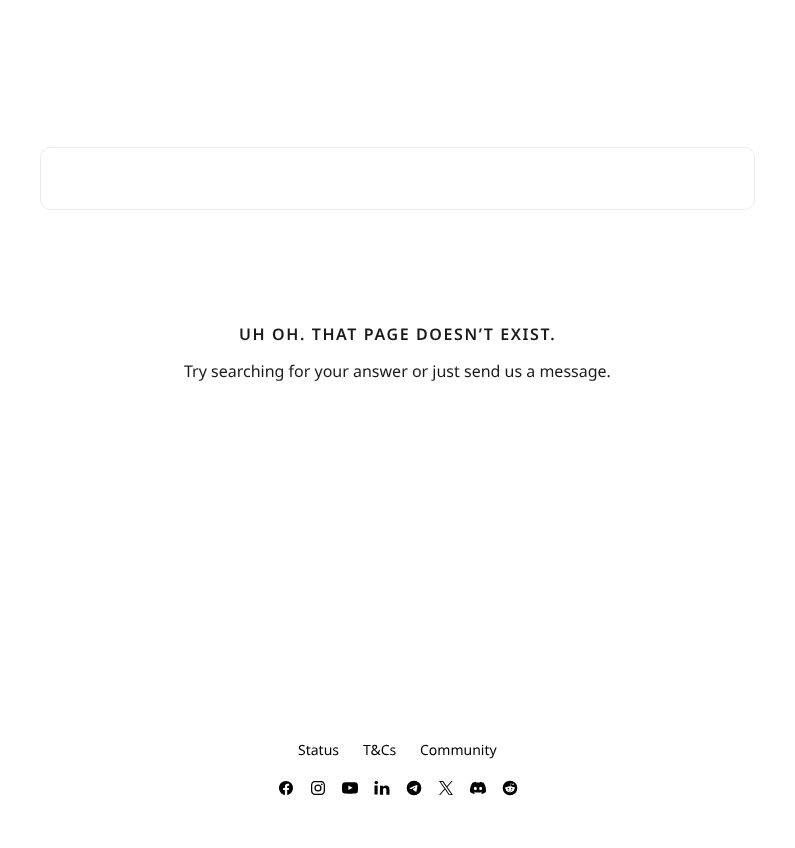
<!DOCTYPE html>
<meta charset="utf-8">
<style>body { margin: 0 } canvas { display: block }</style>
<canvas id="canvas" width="795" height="848"></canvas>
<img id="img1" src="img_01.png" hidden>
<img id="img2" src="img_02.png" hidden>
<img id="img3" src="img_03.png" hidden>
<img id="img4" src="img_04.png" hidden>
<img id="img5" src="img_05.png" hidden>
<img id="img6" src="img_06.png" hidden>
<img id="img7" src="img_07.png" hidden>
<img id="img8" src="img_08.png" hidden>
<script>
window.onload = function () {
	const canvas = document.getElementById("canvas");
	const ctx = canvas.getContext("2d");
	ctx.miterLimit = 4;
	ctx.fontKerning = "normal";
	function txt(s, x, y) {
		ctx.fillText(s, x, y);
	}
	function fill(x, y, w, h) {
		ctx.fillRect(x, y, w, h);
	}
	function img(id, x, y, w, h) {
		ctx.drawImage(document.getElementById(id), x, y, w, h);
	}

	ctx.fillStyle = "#FFFFFF";
	fill(0, 0, 795, 848);
	ctx.beginPath();
	ctx.roundRect(40.5, 147.5, 714, 62, 9.5);
	ctx.strokeStyle = "rgba(0, 0, 0, 0.08)";
	ctx.stroke();
	img("img1", 279, 781, 14, 14);
	img("img2", 311, 781, 14, 14);
	img("img3", 342, 782, 16, 12);
	img("img4", 374, 781, 16, 14);
	img("img5", 406, 780, 16, 16);
	img("img6", 439, 781, 14, 14);
	img("img7", 470, 781, 16, 13);
	img("img8", 502, 780, 16, 16);
	ctx.letterSpacing = "1.6px";
	ctx.font = "600 16px Noto Sans";
	ctx.fillStyle = "#1A1A1A";
	txt("UH OH. THAT PAGE DOESN’T EXIST.", 239, 340);
	ctx.letterSpacing = "0px";
	ctx.font = "16px Noto Sans";
	txt("Try searching for your answer or just send us a message.", 184, 377);
	ctx.font = "14px Noto Sans";
	ctx.fillStyle = "#000000";
	txt("Status", 298, 755);
	txt("T&Cs", 363, 755);
	txt("Community", 420, 755);
};
</script>
